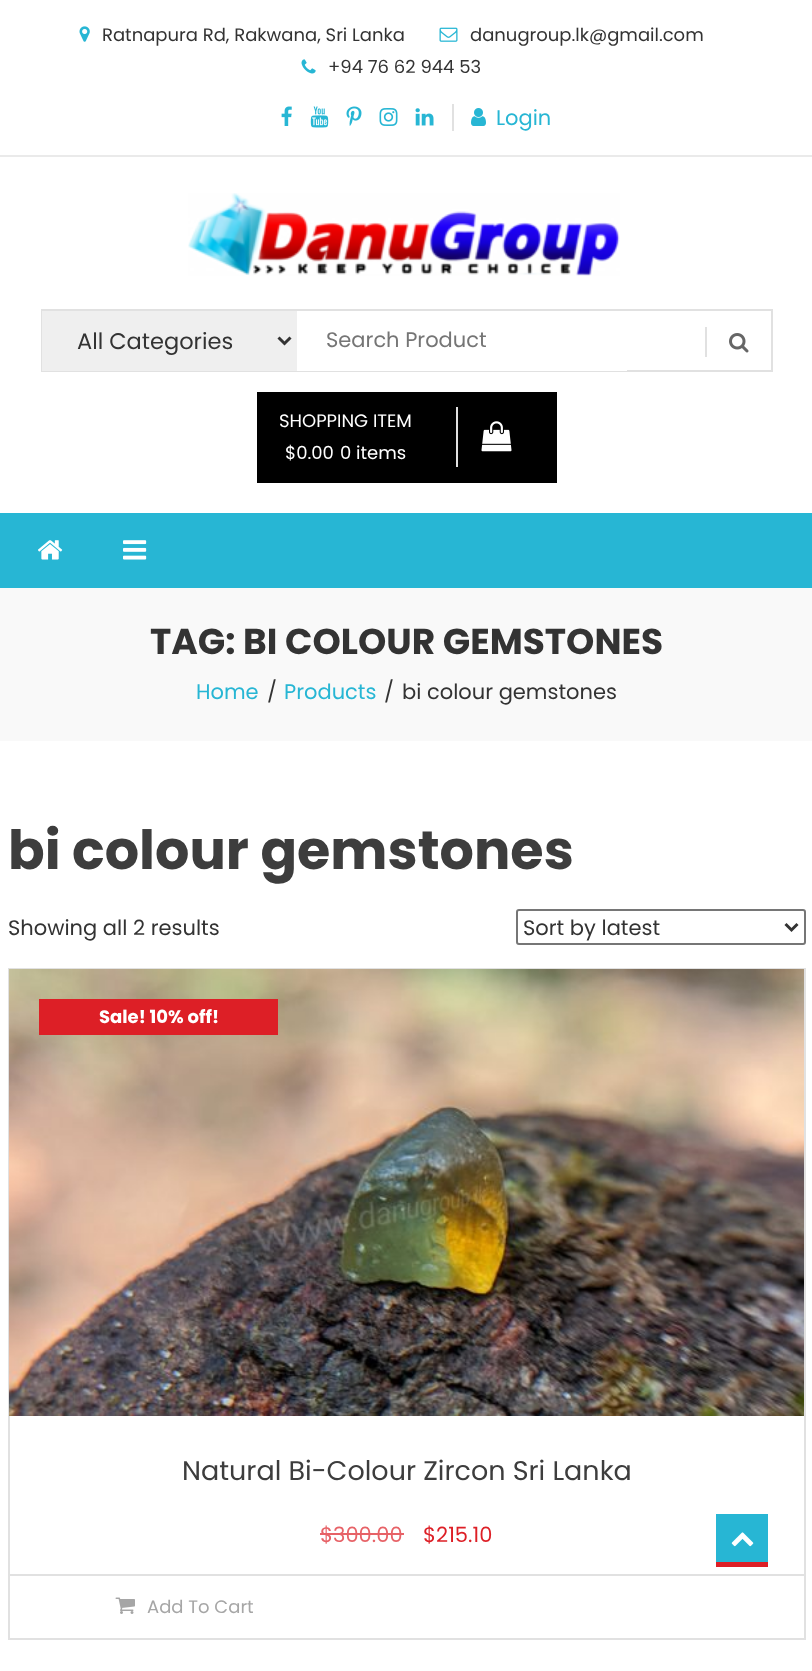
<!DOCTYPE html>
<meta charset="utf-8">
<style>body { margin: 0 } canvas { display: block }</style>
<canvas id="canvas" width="812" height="1671"></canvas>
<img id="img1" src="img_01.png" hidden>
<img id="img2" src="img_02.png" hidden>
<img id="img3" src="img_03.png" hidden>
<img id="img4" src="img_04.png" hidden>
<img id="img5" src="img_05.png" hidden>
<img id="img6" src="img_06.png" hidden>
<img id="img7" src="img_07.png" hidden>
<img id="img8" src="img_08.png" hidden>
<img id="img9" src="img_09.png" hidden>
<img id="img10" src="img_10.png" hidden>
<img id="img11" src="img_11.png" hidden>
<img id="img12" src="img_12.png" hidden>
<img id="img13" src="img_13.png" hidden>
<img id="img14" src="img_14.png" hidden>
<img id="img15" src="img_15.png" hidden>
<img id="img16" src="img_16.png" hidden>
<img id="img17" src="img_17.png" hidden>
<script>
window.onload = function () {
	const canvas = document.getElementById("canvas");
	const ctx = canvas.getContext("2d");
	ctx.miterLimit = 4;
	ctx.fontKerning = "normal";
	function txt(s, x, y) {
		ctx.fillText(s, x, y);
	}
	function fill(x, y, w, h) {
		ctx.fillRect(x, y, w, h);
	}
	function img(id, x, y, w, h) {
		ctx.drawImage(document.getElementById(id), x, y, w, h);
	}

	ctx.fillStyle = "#FFFFFF";
	fill(0, 0, 812, 1671);
	ctx.fillStyle = "#EAEAEA";
	fill(0, 155, 812, 2);
	img("img1", 79, 26, 11, 16);
	img("img2", 439, 27, 19, 15);
	img("img3", 301, 59, 15, 15);
	img("img4", 281, 106, 11, 20);
	img("img5", 310, 106, 19, 22);
	img("img6", 346, 106, 16, 20);
	img("img7", 379, 108, 19, 18);
	img("img8", 415, 108, 19, 18);
	ctx.fillStyle = "#E1E1E1";
	fill(452, 104, 2, 27);
	img("img9", 471, 108, 15, 18);
	img("img10", 188, 193, 432, 83);
	ctx.strokeStyle = "#E1E1E1";
	ctx.lineWidth = 2;
	ctx.strokeRect(42, 310, 730, 61);
	ctx.fillStyle = "#EFEFEF";
	fill(42, 311, 255, 60);
	ctx.beginPath();
	ctx.moveTo(278.5, 337.5);
	ctx.lineTo(284.5, 343.5);
	ctx.lineTo(290.5, 337.5);
	ctx.strokeStyle = "#333333";
	ctx.lineWidth = 3;
	ctx.stroke();
	ctx.fillStyle = "#FFFFFF";
	fill(297, 370, 330, 1);
	ctx.fillStyle = "#E1E1E1";
	fill(705, 327, 2, 30);
	img("img11", 729, 333, 20, 20);
	ctx.fillStyle = "#000000";
	fill(257, 392, 300, 91);
	ctx.fillStyle = "#E1E1E1";
	fill(456, 407, 2, 60);
	img("img12", 481, 421, 31, 31);
	ctx.fillStyle = "#27B6D4";
	fill(0, 513, 812, 75);
	img("img13", 38, 540, 25, 20);
	img("img14", 123, 540, 24, 20);
	ctx.fillStyle = "#F9F9F9";
	fill(0, 588, 812, 153);
	ctx.beginPath();
	ctx.roundRect(517, 910, 288, 34, 2);
	ctx.strokeStyle = "#767676";
	ctx.lineWidth = 2;
	ctx.stroke();
	ctx.beginPath();
	ctx.moveTo(785.5, 924);
	ctx.lineTo(791.5, 930);
	ctx.lineTo(797.5, 924);
	ctx.strokeStyle = "#333333";
	ctx.lineWidth = 3;
	ctx.stroke();
	ctx.strokeStyle = "#E1E1E1";
	ctx.lineWidth = 2;
	ctx.strokeRect(9, 969, 796, 670);
	img("img15", 9, 969, 795, 447);
	ctx.fillStyle = "#DD1F26";
	fill(39, 999, 239, 36);
	ctx.fillStyle = "#E76267";
	fill(320, 1533, 84, 2);
	ctx.fillStyle = "#E1E1E1";
	fill(9, 1574, 795, 2);
	img("img16", 115, 1597, 20, 17);
	ctx.fillStyle = "#27B6D4";
	fill(716, 1514, 52, 48);
	ctx.fillStyle = "#DD1F26";
	fill(716, 1562, 52, 5);
	img("img17", 731, 1532, 23, 15);
	ctx.font = "18px Poppins";
	ctx.fillStyle = "#333333";
	txt("Ratnapura Rd, Rakwana, Sri Lanka", 102, 41);
	txt("danugroup.lk@gmail.com", 470, 41);
	txt("+94 76 62 944 53", 328, 73);
	ctx.font = "21px Poppins";
	ctx.fillStyle = "#27B6D4";
	txt("Login", 496, 125);
	ctx.font = "22.5px Poppins";
	ctx.fillStyle = "#333333";
	txt("All Categories", 77, 349);
	ctx.font = "21px Poppins";
	ctx.fillStyle = "#757575";
	txt("Search Product", 326, 347);
	ctx.font = "18px Poppins";
	ctx.fillStyle = "#FFFFFF";
	txt("SHOPPING ITEM", 279, 427);
	txt("$0.00", 285, 459);
	txt("0 items", 340, 459);
	ctx.font = "bold 36px Poppins";
	ctx.fillStyle = "#333333";
	txt("TAG: BI COLOUR GEMSTONES", 150, 654);
	ctx.font = "21px Poppins";
	ctx.fillStyle = "#27B6D4";
	txt("Home", 196, 699);
	ctx.fillStyle = "#333333";
	txt("/", 267, 699);
	ctx.fillStyle = "#27B6D4";
	txt("Products", 284, 699);
	ctx.fillStyle = "#333333";
	txt("/", 384, 699);
	txt("bi colour gemstones", 402, 699);
	ctx.font = "bold 54px Poppins";
	ctx.fillStyle = "#3D3D3D";
	txt("bi colour gemstones", 8, 869);
	ctx.font = "21px Poppins";
	ctx.fillStyle = "#333333";
	txt("Showing all 2 results", 8, 935);
	txt("Sort by latest", 523, 935);
	ctx.font = "bold 18px Poppins";
	ctx.fillStyle = "#FFFFFF";
	txt("Sale! 10% off!", 99, 1023);
	ctx.font = "27px Poppins";
	ctx.fillStyle = "#3D3D3D";
	txt("Natural Bi-Colour Zircon Sri Lanka", 182, 1480);
	ctx.font = "21px Poppins";
	ctx.fillStyle = "#E76267";
	txt("$300.00", 320, 1542);
	ctx.fillStyle = "#DD1F26";
	txt("$215.10", 423, 1542);
	ctx.font = "18px Poppins";
	ctx.fillStyle = "#A6A6A6";
	txt("Add To Cart", 147, 1613);
};
</script>
